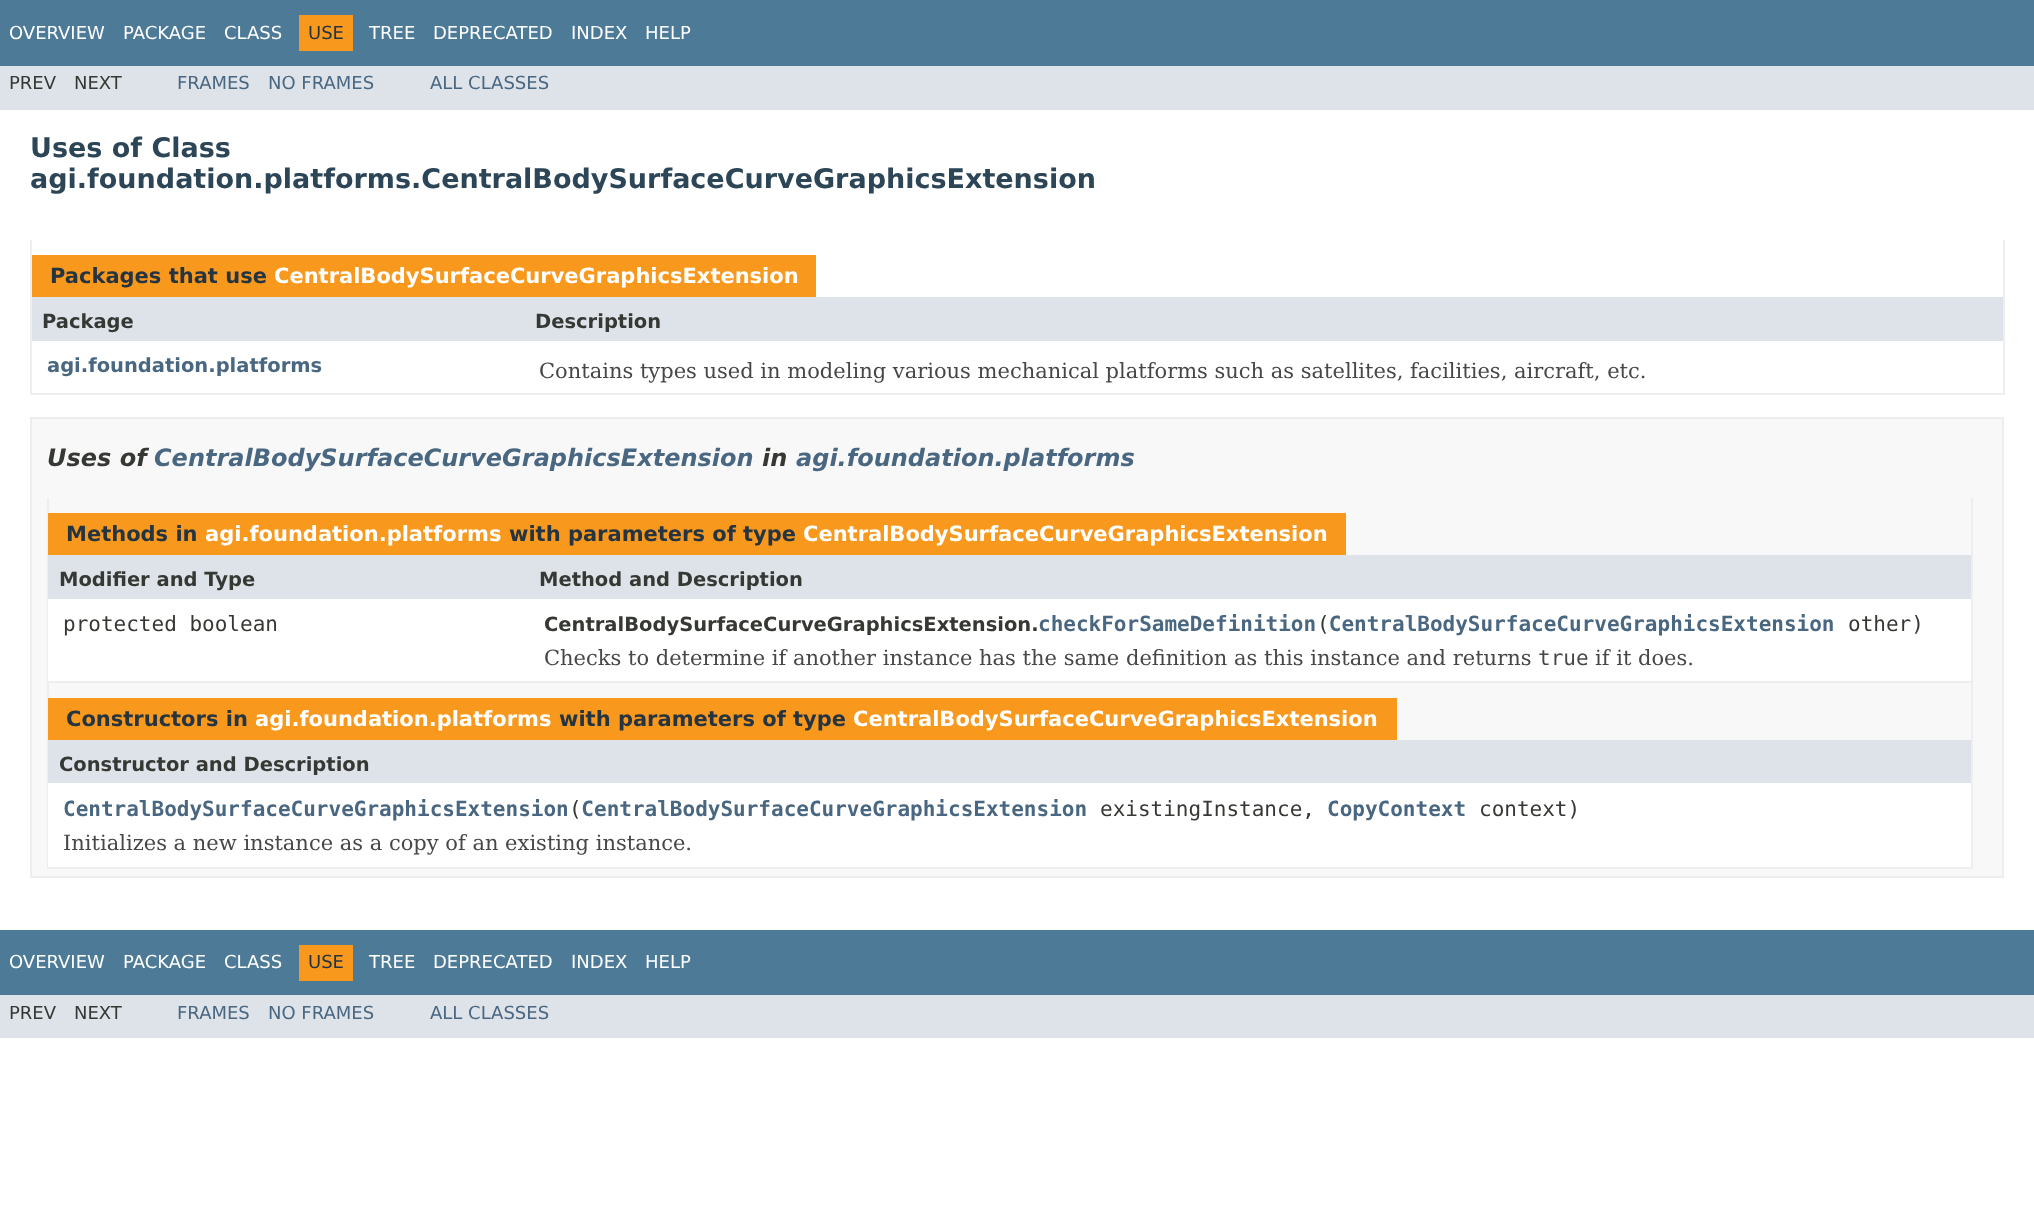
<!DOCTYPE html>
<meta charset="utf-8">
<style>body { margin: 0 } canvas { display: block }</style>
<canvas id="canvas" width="2034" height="1224"></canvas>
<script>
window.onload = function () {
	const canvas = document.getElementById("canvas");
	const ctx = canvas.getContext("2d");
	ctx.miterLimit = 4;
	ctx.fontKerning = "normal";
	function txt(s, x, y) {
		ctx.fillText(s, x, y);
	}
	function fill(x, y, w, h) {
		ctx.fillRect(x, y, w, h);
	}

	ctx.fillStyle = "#FFFFFF";
	fill(0, 0, 2034, 1224);
	ctx.fillStyle = "#4D7A97";
	fill(0, 0, 2034, 66);
	ctx.fillStyle = "#F8981D";
	fill(299, 15, 54, 36);
	ctx.fillStyle = "#DEE3E9";
	fill(0, 66, 2034, 44);
	ctx.fillStyle = "#EEEEEE";
	fill(2003, 240, 2, 155);
	fill(30, 393, 1974, 2);
	fill(30, 240, 2, 155);
	ctx.fillStyle = "#F8981D";
	fill(32, 255, 784, 42);
	ctx.fillStyle = "#DEE3E9";
	fill(32, 297, 1971, 44);
	ctx.fillStyle = "#F8F8F8";
	ctx.beginPath();
	ctx.rect(31, 418, 1972, 459);
	ctx.fill();
	ctx.strokeStyle = "#EDEDED";
	ctx.lineWidth = 2;
	ctx.stroke();
	ctx.fillStyle = "#EEEEEE";
	fill(1971, 498, 2, 371);
	fill(47, 681, 1926, 2);
	fill(47, 498, 2, 185);
	ctx.fillStyle = "#F8981D";
	fill(48, 513, 1298, 42);
	ctx.fillStyle = "#DEE3E9";
	fill(48, 555, 1923, 44);
	ctx.fillStyle = "#FFFFFF";
	fill(48, 599, 1923, 82);
	ctx.fillStyle = "#EEEEEE";
	fill(47, 867, 1926, 2);
	fill(47, 683, 2, 186);
	ctx.fillStyle = "#F8981D";
	fill(48, 698, 1349, 42);
	ctx.fillStyle = "#DEE3E9";
	fill(48, 740, 1923, 43);
	ctx.fillStyle = "#FFFFFF";
	fill(48, 783, 1923, 84);
	ctx.fillStyle = "#4D7A97";
	fill(0, 930, 2034, 65);
	ctx.fillStyle = "#F8981D";
	fill(299, 945, 54, 36);
	ctx.fillStyle = "#DEE3E9";
	fill(0, 995, 2034, 43);
	ctx.font = "18px DejaVu Sans";
	ctx.fillStyle = "#FFFFFF";
	txt("OVERVIEW", 9, 39);
	txt("PACKAGE", 123, 39);
	txt("CLASS", 224, 39);
	ctx.fillStyle = "#253441";
	txt("USE", 308, 39);
	ctx.fillStyle = "#FFFFFF";
	txt("TREE", 369, 39);
	txt("DEPRECATED", 433, 39);
	txt("INDEX", 571, 39);
	txt("HELP", 645, 39);
	ctx.fillStyle = "#353833";
	txt("PREV", 9, 89);
	txt("NEXT", 74, 89);
	ctx.fillStyle = "#4A6782";
	txt("FRAMES", 177, 89);
	txt("NO FRAMES", 268, 89);
	txt("ALL CLASSES", 430, 89);
	ctx.font = "bold 27px DejaVu Sans";
	ctx.fillStyle = "#2C4557";
	txt("Uses of Class", 30, 157);
	txt("agi.foundation.platforms.CentralBodySurfaceCurveGraphicsExtension", 30, 188);
	ctx.font = "bold 21px DejaVu Sans";
	ctx.fillStyle = "#253441";
	txt("Packages that use", 50, 283);
	ctx.fillStyle = "#FFFFFF";
	txt("CentralBodySurfaceCurveGraphicsExtension", 274, 283);
	ctx.font = "bold 19.5px DejaVu Sans";
	ctx.fillStyle = "#353833";
	txt("Package", 42, 328);
	txt("Description", 535, 328);
	ctx.fillStyle = "#4A6782";
	txt("agi.foundation.platforms", 47, 372);
	ctx.font = "21px DejaVu Serif";
	ctx.fillStyle = "#474747";
	txt("Contains types used in modeling various mechanical platforms such as satellites, facilities, aircraft, etc.", 539, 378);
	ctx.font = "italic bold 24px DejaVu Sans";
	ctx.fillStyle = "#353833";
	txt("Uses of", 47, 466);
	ctx.fillStyle = "#4A6782";
	txt("CentralBodySurfaceCurveGraphicsExtension", 154, 466);
	ctx.fillStyle = "#353833";
	txt("in", 762, 466);
	ctx.fillStyle = "#4A6782";
	txt("agi.foundation.platforms", 796, 466);
	ctx.font = "bold 21px DejaVu Sans";
	ctx.fillStyle = "#253441";
	txt("Methods in", 66, 541);
	ctx.fillStyle = "#FFFFFF";
	txt("agi.foundation.platforms", 205, 541);
	ctx.fillStyle = "#253441";
	txt("with parameters of type", 509, 541);
	ctx.fillStyle = "#FFFFFF";
	txt("CentralBodySurfaceCurveGraphicsExtension", 803, 541);
	ctx.font = "bold 19.5px DejaVu Sans";
	ctx.fillStyle = "#353833";
	txt("Modifier and Type", 59, 586);
	txt("Method and Description", 539, 586);
	ctx.font = "21px DejaVu Sans Mono";
	txt("protected boolean", 63, 631);
	ctx.font = "bold 21px DejaVu Sans Mono";
	ctx.fillStyle = "#4A6782";
	txt("checkForSameDefinition CentralBodySurfaceCurveGraphicsExtension", 1038, 631);
	ctx.font = "bold 19.5px DejaVu Sans";
	ctx.fillStyle = "#353833";
	txt("CentralBodySurfaceCurveGraphicsExtension.", 544, 631);
	ctx.font = "21px DejaVu Sans Mono";
	txt("(", 1317, 631);
	txt("other)", 1848, 631);
	ctx.font = "21px DejaVu Serif";
	ctx.fillStyle = "#474747";
	txt("Checks to determine if another instance has the same definition as this instance and returns", 544, 665);
	ctx.font = "21px DejaVu Sans Mono";
	txt("true", 1538, 665);
	ctx.font = "21px DejaVu Serif";
	txt("if it does.", 1595, 665);
	ctx.font = "bold 21px DejaVu Sans";
	ctx.fillStyle = "#253441";
	txt("Constructors in", 66, 726);
	ctx.fillStyle = "#FFFFFF";
	txt("agi.foundation.platforms", 255, 726);
	ctx.fillStyle = "#253441";
	txt("with parameters of type", 559, 726);
	ctx.fillStyle = "#FFFFFF";
	txt("CentralBodySurfaceCurveGraphicsExtension", 853, 726);
	ctx.font = "bold 19.5px DejaVu Sans";
	ctx.fillStyle = "#353833";
	txt("Constructor and Description", 59, 771);
	ctx.font = "bold 21px DejaVu Sans Mono";
	ctx.fillStyle = "#4A6782";
	txt("CentralBodySurfaceCurveGraphicsExtension CentralBodySurfaceCurveGraphicsExtension", 63, 816);
	ctx.font = "21px DejaVu Sans Mono";
	ctx.fillStyle = "#353833";
	txt("(", 569, 816);
	txt("existingInstance,", 1100, 816);
	ctx.font = "bold 21px DejaVu Sans Mono";
	ctx.fillStyle = "#4A6782";
	txt("CopyContext", 1327, 816);
	ctx.font = "21px DejaVu Sans Mono";
	ctx.fillStyle = "#353833";
	txt("context)", 1479, 816);
	ctx.font = "21px DejaVu Serif";
	ctx.fillStyle = "#474747";
	txt("Initializes a new instance as a copy of an existing instance.", 63, 850);
	ctx.font = "18px DejaVu Sans";
	ctx.fillStyle = "#FFFFFF";
	txt("OVERVIEW", 9, 968);
	txt("PACKAGE", 123, 968);
	txt("CLASS", 224, 968);
	ctx.fillStyle = "#253441";
	txt("USE", 308, 968);
	ctx.fillStyle = "#FFFFFF";
	txt("TREE", 369, 968);
	txt("DEPRECATED", 433, 968);
	txt("INDEX", 571, 968);
	txt("HELP", 645, 968);
	ctx.fillStyle = "#353833";
	txt("PREV", 9, 1019);
	txt("NEXT", 74, 1019);
	ctx.fillStyle = "#4A6782";
	txt("FRAMES", 177, 1019);
	txt("NO FRAMES", 268, 1019);
	txt("ALL CLASSES", 430, 1019);
};
</script>
